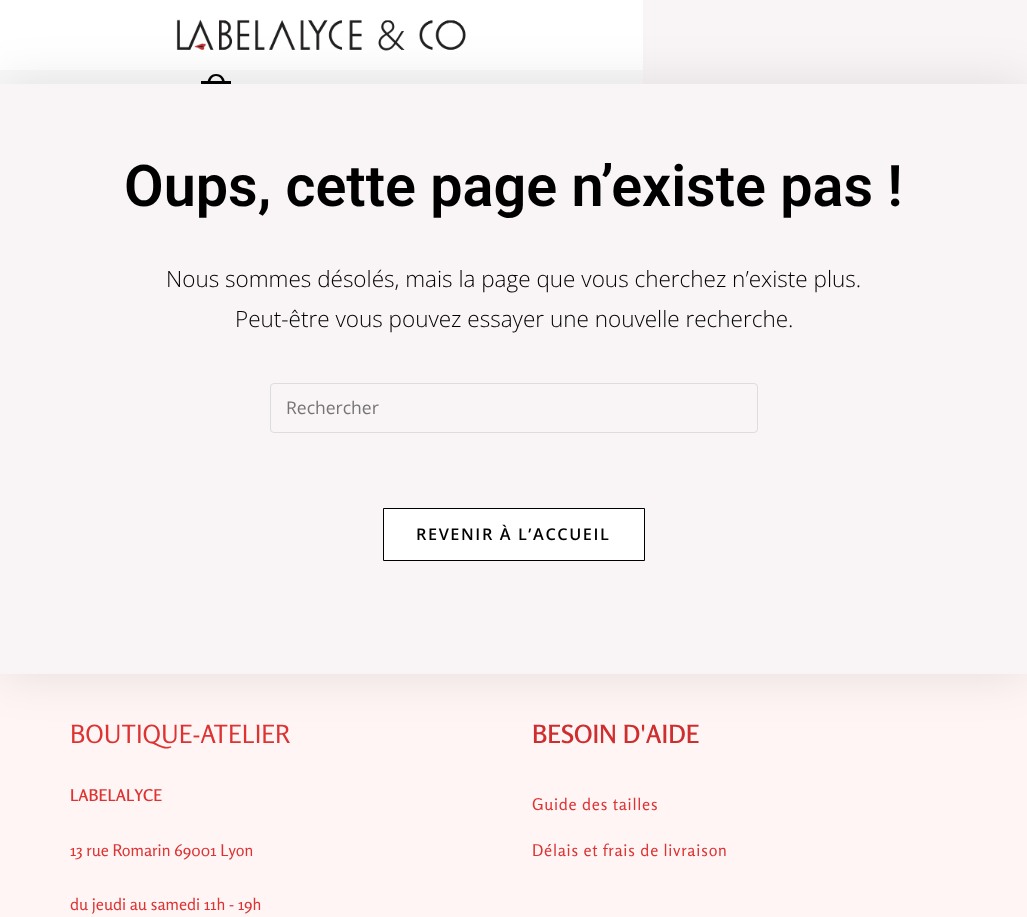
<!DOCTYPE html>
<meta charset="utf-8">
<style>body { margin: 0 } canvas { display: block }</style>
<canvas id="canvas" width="1027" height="917"></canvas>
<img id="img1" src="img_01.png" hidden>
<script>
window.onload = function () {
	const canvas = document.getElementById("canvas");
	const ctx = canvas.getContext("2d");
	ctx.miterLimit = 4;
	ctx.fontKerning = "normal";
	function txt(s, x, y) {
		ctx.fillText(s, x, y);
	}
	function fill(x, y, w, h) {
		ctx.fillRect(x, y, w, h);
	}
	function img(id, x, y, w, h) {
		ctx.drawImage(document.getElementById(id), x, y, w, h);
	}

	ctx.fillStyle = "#F9F4F5";
	fill(0, 0, 1027, 917);
	ctx.fillStyle = "#FFFFFF";
	fill(0, 0, 643, 70);
	img("img1", 176, 19, 290, 32);
	ctx.fillStyle = "#F9F9F9";
	fill(0, 70, 643, 14);
	ctx.strokeStyle = "#000000";
	ctx.lineWidth = 3;
	ctx.strokeRect(202.5, 82.5, 27, 27);
	ctx.fillStyle = "#000000";
	ctx.beginPath();
	ctx.moveTo(216, 74);
	ctx.bezierCurveTo(222, 74, 225, 78.5, 225, 84);
	ctx.lineTo(207.5, 84);
	ctx.bezierCurveTo(207.5, 78.5, 210.5, 74, 216, 74);
	ctx.closePath();
	ctx.moveTo(216, 76);
	ctx.bezierCurveTo(220.5, 76, 222.5, 80, 222.5, 84);
	ctx.lineTo(210, 84);
	ctx.bezierCurveTo(210, 80, 212, 76, 216, 76);
	ctx.closePath();
	ctx.fill("evenodd");
	ctx.fillStyle = "#FFF5F5";
	fill(0, 674, 1027, 243);
	ctx.fillStyle = "rgba(0, 0, 0, 0.1)";
	ctx.filter = "blur(25px)";
	ctx.beginPath();
	ctx.rect(0, 84, 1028, 590);
	ctx.fill();
	ctx.filter = "none";
	ctx.fillStyle = "#F9F4F5";
	fill(0, 84, 1027, 590);
	ctx.beginPath();
	ctx.roundRect(270.5, 383.5, 487, 49, 3.5);
	ctx.strokeStyle = "#DDDDDD";
	ctx.lineWidth = 1;
	ctx.stroke();
	ctx.fillStyle = "#FFFFFF";
	ctx.beginPath();
	ctx.rect(383.5, 508.5, 261, 52);
	ctx.fill();
	ctx.strokeStyle = "#000000";
	ctx.stroke();
	ctx.font = "600 57.5px Roboto";
	ctx.fillStyle = "#000000";
	txt("Oups, cette page n’existe pas !", 124, 206);
	ctx.font = "300 22.5px Open Sans";
	txt("Nous sommes désolés, mais la page que vous cherchez n’existe plus.", 166, 287);
	txt("Peut-être vous pouvez essayer une nouvelle recherche.", 235, 327);
	ctx.font = "17.5px Open Sans";
	ctx.fillStyle = "#757575";
	txt("Rechercher", 286, 414);
	ctx.letterSpacing = "1.6px";
	ctx.font = "600 16.25px Open Sans";
	ctx.fillStyle = "#000000";
	txt("REVENIR À L’ACCUEIL", 416, 540);
	ctx.letterSpacing = "0px";
	ctx.font = "25px Rosario";
	ctx.fillStyle = "#DD3333";
	txt("BOUTIQUE-ATELIER", 70, 743);
	ctx.font = "600 16.25px Rosario";
	txt("LABELALYCE", 70, 801);
	ctx.font = "16.25px Rosario";
	txt("13 rue Romarin 69001 Lyon", 70, 856);
	txt("du jeudi au samedi 11h - 19h", 70, 910);
	ctx.font = "600 25px Rosario";
	ctx.fillStyle = "#CF2E2E";
	txt("BESOIN D'AIDE", 532, 743);
	ctx.letterSpacing = "0.75px";
	ctx.font = "16.25px Rosario";
	ctx.fillStyle = "#DD3333";
	txt("Guide des tailles", 532, 810);
	txt("Délais et frais de livraison", 532, 856);
};
</script>
